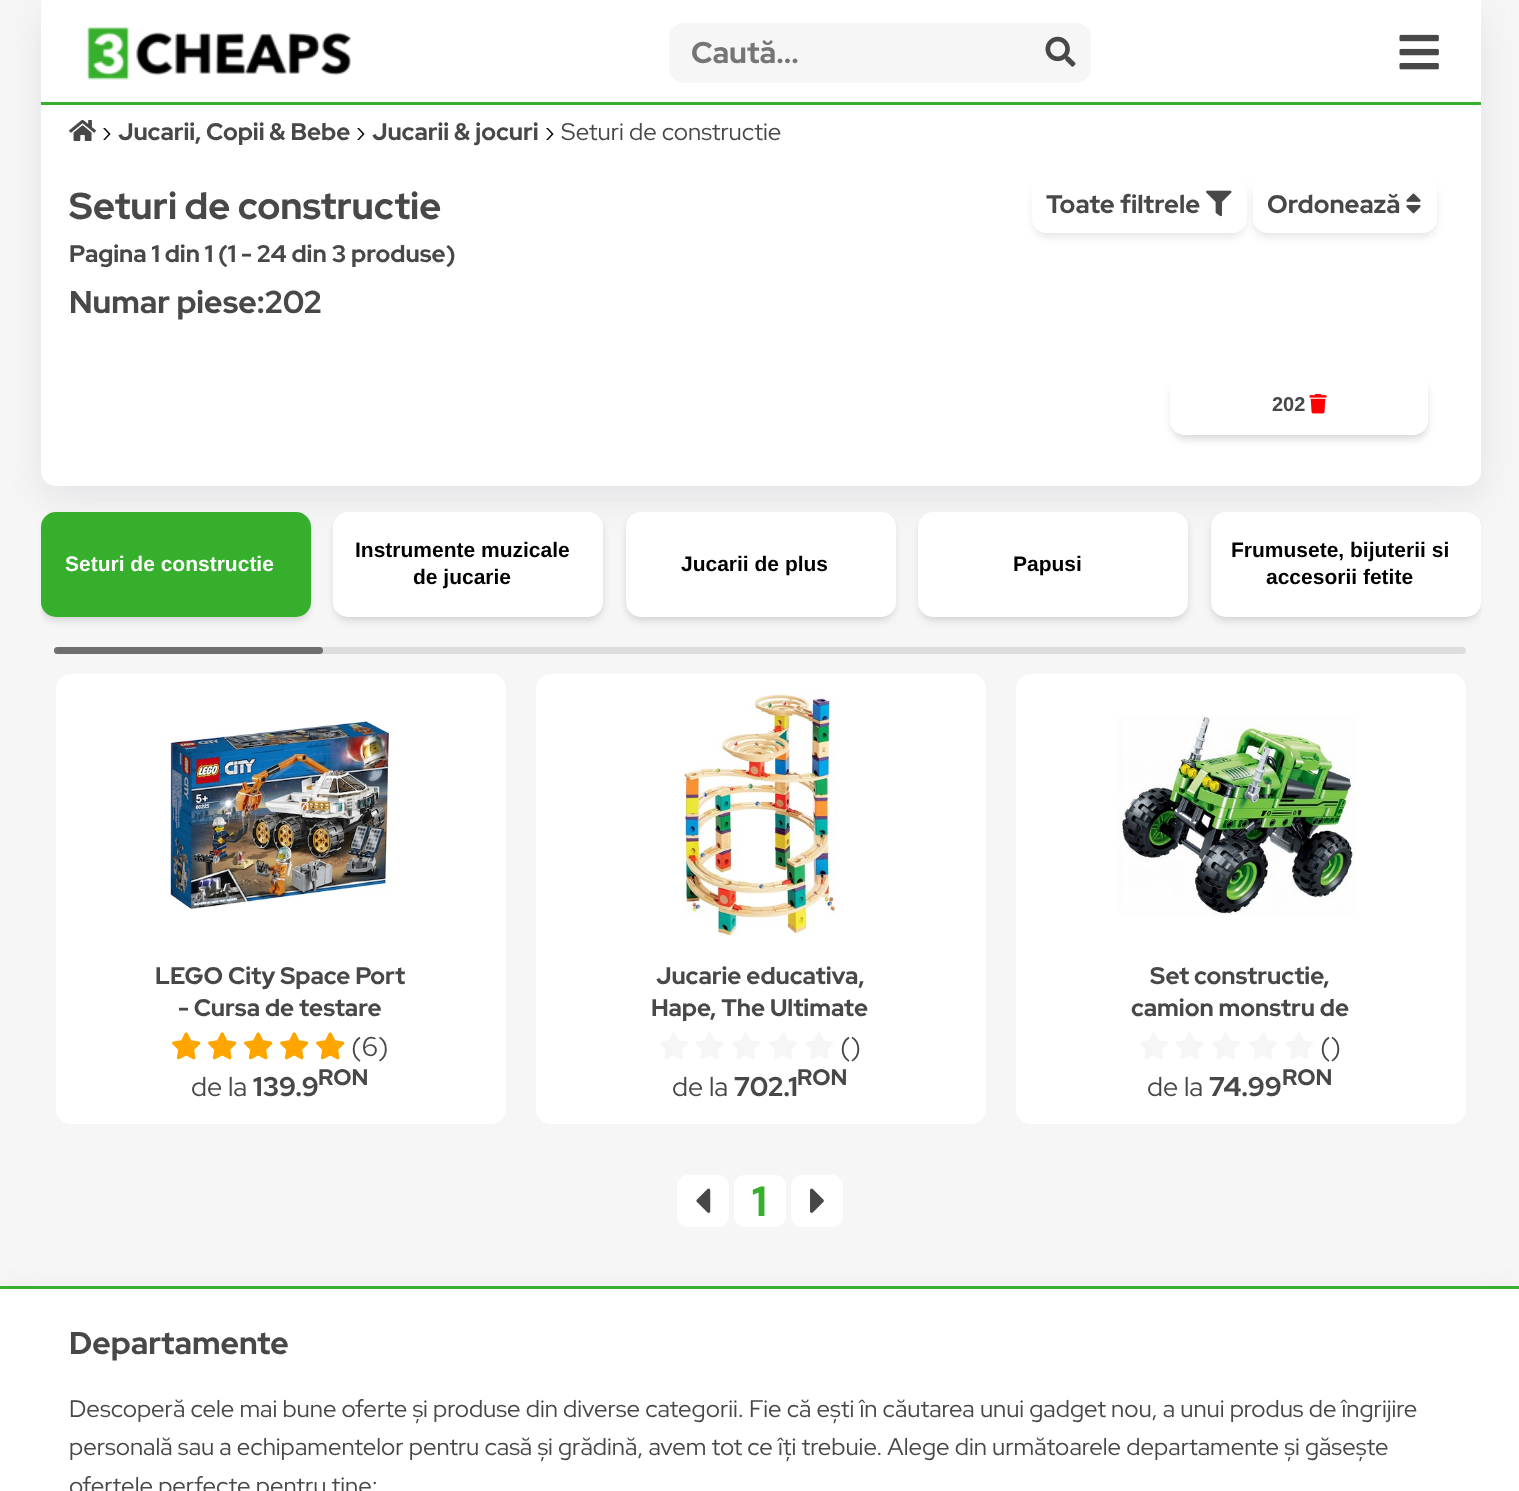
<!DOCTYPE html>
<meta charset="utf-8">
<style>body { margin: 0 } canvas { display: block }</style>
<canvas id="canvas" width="1519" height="1491"></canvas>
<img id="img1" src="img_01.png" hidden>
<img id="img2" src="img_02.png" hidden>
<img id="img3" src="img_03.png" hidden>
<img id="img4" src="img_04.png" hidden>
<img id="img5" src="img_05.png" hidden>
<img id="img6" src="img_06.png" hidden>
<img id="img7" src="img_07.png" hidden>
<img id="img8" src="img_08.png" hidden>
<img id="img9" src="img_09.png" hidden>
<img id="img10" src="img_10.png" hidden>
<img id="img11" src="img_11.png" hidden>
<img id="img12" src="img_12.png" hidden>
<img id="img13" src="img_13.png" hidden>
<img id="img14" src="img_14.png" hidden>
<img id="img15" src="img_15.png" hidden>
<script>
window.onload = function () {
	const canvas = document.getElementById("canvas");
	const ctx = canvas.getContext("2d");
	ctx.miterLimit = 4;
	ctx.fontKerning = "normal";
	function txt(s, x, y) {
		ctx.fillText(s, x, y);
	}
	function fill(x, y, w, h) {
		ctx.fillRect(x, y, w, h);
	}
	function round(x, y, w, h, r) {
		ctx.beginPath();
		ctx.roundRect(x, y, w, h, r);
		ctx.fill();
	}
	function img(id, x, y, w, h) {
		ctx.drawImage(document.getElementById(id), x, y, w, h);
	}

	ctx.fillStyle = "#F6F6F6";
	fill(0, 0, 1519, 1491);
	ctx.fillStyle = "rgba(149, 157, 165, 0.2)";
	ctx.filter = "blur(18px)";
	ctx.beginPath();
	ctx.roundRect(41, 12, 1440, 486, 15);
	ctx.fill();
	ctx.filter = "none";
	ctx.fillStyle = "#FFFFFF";
	ctx.beginPath();
	ctx.roundRect(41, 0, 1440, 486, [0, 0, 15, 15]);
	ctx.fill();
	ctx.fillStyle = "#36AF2C";
	fill(41, 102, 1440, 3);
	img("img1", 87, 27, 264, 53);
	ctx.fillStyle = "#F6F6F6";
	round(669, 23, 422, 60, 15);
	img("img2", 1045, 36, 31, 31);
	img("img3", 1399, 34, 40, 36);
	img("img4", 69, 120, 27, 21);
	ctx.save();
	ctx.beginPath();
	ctx.moveTo(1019, 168);
	ctx.lineTo(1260, 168);
	ctx.lineTo(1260, 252);
	ctx.lineTo(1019, 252);
	ctx.closePath();
	ctx.moveTo(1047, 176);
	ctx.lineTo(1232, 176);
	ctx.bezierCurveTo(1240.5, 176, 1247, 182.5, 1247, 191);
	ctx.lineTo(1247, 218);
	ctx.bezierCurveTo(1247, 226.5, 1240.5, 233, 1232, 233);
	ctx.lineTo(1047, 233);
	ctx.bezierCurveTo(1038.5, 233, 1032, 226.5, 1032, 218);
	ctx.lineTo(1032, 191);
	ctx.bezierCurveTo(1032, 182.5, 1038.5, 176, 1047, 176);
	ctx.closePath();
	ctx.clip("evenodd");
	ctx.fillStyle = "rgba(0, 0, 0, 0.1)";
	ctx.filter = "blur(4.5px)";
	ctx.beginPath();
	ctx.roundRect(1034, 183, 211, 54, 14);
	ctx.fill();
	ctx.filter = "none";
	ctx.restore();
	img("img5", 1206, 190, 26, 27);
	ctx.save();
	ctx.beginPath();
	ctx.moveTo(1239, 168);
	ctx.lineTo(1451, 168);
	ctx.lineTo(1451, 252);
	ctx.lineTo(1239, 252);
	ctx.closePath();
	ctx.moveTo(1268, 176);
	ctx.lineTo(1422, 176);
	ctx.bezierCurveTo(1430.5, 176, 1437, 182.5, 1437, 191);
	ctx.lineTo(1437, 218);
	ctx.bezierCurveTo(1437, 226.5, 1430.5, 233, 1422, 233);
	ctx.lineTo(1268, 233);
	ctx.bezierCurveTo(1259.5, 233, 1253, 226.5, 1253, 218);
	ctx.lineTo(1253, 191);
	ctx.bezierCurveTo(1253, 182.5, 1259.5, 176, 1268, 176);
	ctx.closePath();
	ctx.clip("evenodd");
	ctx.fillStyle = "rgba(0, 0, 0, 0.1)";
	ctx.filter = "blur(4.5px)";
	ctx.beginPath();
	ctx.roundRect(1254, 183, 182, 54, 14);
	ctx.fill();
	ctx.filter = "none";
	ctx.restore();
	img("img6", 1406, 193, 15, 21);
	ctx.save();
	ctx.beginPath();
	ctx.moveTo(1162, 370);
	ctx.lineTo(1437, 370);
	ctx.lineTo(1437, 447);
	ctx.lineTo(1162, 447);
	ctx.closePath();
	ctx.moveTo(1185, 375);
	ctx.lineTo(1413, 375);
	ctx.bezierCurveTo(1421.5, 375, 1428, 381.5, 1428, 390);
	ctx.lineTo(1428, 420);
	ctx.bezierCurveTo(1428, 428.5, 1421.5, 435, 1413, 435);
	ctx.lineTo(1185, 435);
	ctx.bezierCurveTo(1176.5, 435, 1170, 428.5, 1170, 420);
	ctx.lineTo(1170, 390);
	ctx.bezierCurveTo(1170, 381.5, 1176.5, 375, 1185, 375);
	ctx.closePath();
	ctx.clip("evenodd");
	ctx.fillStyle = "rgba(0, 0, 0, 0.06)";
	ctx.filter = "blur(3px)";
	ctx.beginPath();
	ctx.roundRect(1172, 380, 255, 57, 14);
	ctx.fill();
	ctx.filter = "none";
	ctx.restore();
	ctx.save();
	ctx.beginPath();
	ctx.moveTo(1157, 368);
	ctx.lineTo(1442, 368);
	ctx.lineTo(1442, 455);
	ctx.lineTo(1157, 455);
	ctx.closePath();
	ctx.moveTo(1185, 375);
	ctx.lineTo(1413, 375);
	ctx.bezierCurveTo(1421.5, 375, 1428, 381.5, 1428, 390);
	ctx.lineTo(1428, 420);
	ctx.bezierCurveTo(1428, 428.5, 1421.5, 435, 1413, 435);
	ctx.lineTo(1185, 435);
	ctx.bezierCurveTo(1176.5, 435, 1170, 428.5, 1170, 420);
	ctx.lineTo(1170, 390);
	ctx.bezierCurveTo(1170, 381.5, 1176.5, 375, 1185, 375);
	ctx.closePath();
	ctx.clip("evenodd");
	ctx.fillStyle = "rgba(0, 0, 0, 0.1)";
	ctx.filter = "blur(4.5px)";
	ctx.beginPath();
	ctx.roundRect(1172, 383, 255, 57, 14);
	ctx.fill();
	ctx.filter = "none";
	ctx.restore();
	img("img7", 1309, 393, 18, 21);
	ctx.fillStyle = "rgba(0, 0, 0, 0.06)";
	ctx.filter = "blur(3px)";
	ctx.beginPath();
	ctx.roundRect(42, 516, 267, 102, 14);
	ctx.fill();
	ctx.filter = "none";
	ctx.save();
	ctx.beginPath();
	ctx.rect(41, 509, 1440, 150);
	ctx.clip();
	ctx.fillStyle = "rgba(0, 0, 0, 0.1)";
	ctx.filter = "blur(4.5px)";
	ctx.beginPath();
	ctx.roundRect(42, 519, 267, 102, 14);
	ctx.fill();
	ctx.filter = "none";
	ctx.restore();
	ctx.fillStyle = "#36AF2C";
	round(41, 512, 270, 105, 15);
	ctx.fillStyle = "rgba(0, 0, 0, 0.06)";
	ctx.filter = "blur(3px)";
	ctx.beginPath();
	ctx.roundRect(335, 516, 267, 102, 14);
	ctx.fill();
	ctx.filter = "none";
	ctx.fillStyle = "rgba(0, 0, 0, 0.1)";
	ctx.filter = "blur(4.5px)";
	ctx.beginPath();
	ctx.roundRect(335, 519, 267, 102, 14);
	ctx.fill();
	ctx.filter = "none";
	ctx.fillStyle = "#FFFFFF";
	round(333, 512, 270, 105, 15);
	ctx.fillStyle = "rgba(0, 0, 0, 0.06)";
	ctx.filter = "blur(3px)";
	ctx.beginPath();
	ctx.roundRect(627, 516, 267, 102, 14);
	ctx.fill();
	ctx.filter = "none";
	ctx.fillStyle = "rgba(0, 0, 0, 0.1)";
	ctx.filter = "blur(4.5px)";
	ctx.beginPath();
	ctx.roundRect(627, 519, 267, 102, 14);
	ctx.fill();
	ctx.filter = "none";
	ctx.fillStyle = "#FFFFFF";
	round(626, 512, 270, 105, 15);
	ctx.fillStyle = "rgba(0, 0, 0, 0.06)";
	ctx.filter = "blur(3px)";
	ctx.beginPath();
	ctx.roundRect(920, 516, 267, 102, 14);
	ctx.fill();
	ctx.filter = "none";
	ctx.fillStyle = "rgba(0, 0, 0, 0.1)";
	ctx.filter = "blur(4.5px)";
	ctx.beginPath();
	ctx.roundRect(920, 519, 267, 102, 14);
	ctx.fill();
	ctx.filter = "none";
	ctx.fillStyle = "#FFFFFF";
	round(918, 512, 270, 105, 15);
	ctx.fillStyle = "rgba(0, 0, 0, 0.06)";
	ctx.filter = "blur(3px)";
	ctx.beginPath();
	ctx.roundRect(1212, 516, 267, 102, 14);
	ctx.fill();
	ctx.filter = "none";
	ctx.save();
	ctx.beginPath();
	ctx.rect(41, 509, 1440, 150);
	ctx.clip();
	ctx.fillStyle = "rgba(0, 0, 0, 0.1)";
	ctx.filter = "blur(4.5px)";
	ctx.beginPath();
	ctx.roundRect(1212, 519, 267, 102, 14);
	ctx.fill();
	ctx.filter = "none";
	ctx.restore();
	ctx.fillStyle = "#FFFFFF";
	round(1211, 512, 270, 105, 15);
	ctx.fillStyle = "#DDDDDD";
	round(54, 647, 1412, 7, 3.5);
	ctx.fillStyle = "rgba(0, 0, 0, 0.5)";
	round(54, 647, 269, 7, 3.5);
	ctx.fillStyle = "#FFFFFF";
	round(56, 674, 450, 450, 15);
	img("img8", 170, 719, 221, 192);
	img("img9", 172, 1032, 29, 28);
	img("img9", 208, 1032, 29, 28);
	img("img9", 244, 1032, 29, 28);
	img("img9", 280, 1032, 29, 28);
	img("img9", 316, 1032, 29, 28);
	round(536, 674, 450, 450, 15);
	img("img10", 683, 694, 155, 242);
	img("img11", 660, 1032, 28, 27);
	img("img11", 696, 1032, 28, 27);
	img("img11", 732, 1032, 28, 27);
	img("img12", 769, 1032, 28, 27);
	img("img12", 805, 1032, 28, 27);
	round(1016, 674, 450, 450, 15);
	img("img13", 1119, 716, 237, 200);
	img("img11", 1140, 1032, 28, 27);
	img("img11", 1176, 1032, 28, 27);
	img("img11", 1212, 1032, 28, 27);
	img("img12", 1249, 1032, 28, 27);
	img("img12", 1285, 1032, 28, 27);
	round(677, 1175, 52, 52, 11);
	img("img14", 696, 1188, 15, 25);
	round(734, 1175, 52, 52, 11);
	round(791, 1175, 52, 52, 11);
	img("img15", 810, 1188, 14, 25);
	ctx.fillStyle = "rgba(149, 157, 165, 0.2)";
	ctx.filter = "blur(18px)";
	ctx.beginPath();
	ctx.rect(0, 1298, 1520, 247);
	ctx.fill();
	ctx.filter = "none";
	ctx.fillStyle = "#FFFFFF";
	fill(0, 1289, 1519, 202);
	ctx.fillStyle = "#36AF2C";
	fill(0, 1286, 1519, 3);
	ctx.font = "bold 30px Red Hat Display";
	ctx.fillStyle = "#757575";
	txt("Caută...", 691, 63);
	ctx.font = "24px Red Hat Display";
	ctx.fillStyle = "#000000";
	txt("›", 102, 140);
	ctx.font = "bold 24px Red Hat Display";
	ctx.fillStyle = "#484848";
	txt("Jucarii, Copii & Bebe", 118, 140);
	ctx.font = "24px Red Hat Display";
	ctx.fillStyle = "#000000";
	txt("›", 356, 140);
	ctx.font = "bold 24px Red Hat Display";
	ctx.fillStyle = "#484848";
	txt("Jucarii & jocuri", 372, 140);
	ctx.font = "24px Red Hat Display";
	ctx.fillStyle = "#000000";
	txt("›", 545, 140);
	ctx.fillStyle = "#484848";
	txt("Seturi de constructie", 561, 140);
	ctx.font = "bold 37.5px Red Hat Display";
	txt("Seturi de constructie", 69, 219);
	ctx.font = "bold 24px Red Hat Display";
	txt("Pagina 1 din 1 (1 - 24 din 3 produse)", 69, 262);
	ctx.font = "bold 31.5px Red Hat Display";
	txt("Numar piese:202", 69, 313);
	ctx.font = "bold 25.5px Red Hat Display";
	txt("Toate filtrele", 1046, 213);
	txt("Ordonează", 1267, 213);
	ctx.font = "bold 20px Liberation Sans";
	txt("202", 1272, 411);
	ctx.font = "bold 21px Liberation Sans";
	ctx.fillStyle = "#FFFFFF";
	txt("Seturi de constructie", 65, 571);
	ctx.fillStyle = "#000000";
	txt("Instrumente muzicale", 355, 557);
	txt("de jucarie", 413, 584);
	txt("Jucarii de plus", 681, 571);
	txt("Papusi", 1013, 571);
	txt("Frumusete, bijuterii si", 1231, 557);
	txt("accesorii fetite", 1266, 584);
	ctx.font = "bold 24px Red Hat Display";
	ctx.fillStyle = "#484848";
	txt("LEGO City Space Port", 155, 984);
	txt("- Cursa de testare", 178, 1016);
	ctx.font = "27px Red Hat Display";
	txt("(6)", 351, 1056);
	txt("de la", 191, 1096);
	ctx.font = "bold 27px Red Hat Display";
	txt("139.9", 253, 1096);
	ctx.font = "bold 22.5px Red Hat Display";
	txt("RON", 318, 1085);
	ctx.font = "bold 24px Red Hat Display";
	txt("Jucarie educativa,", 656, 984);
	txt("Hape, The Ultimate", 651, 1016);
	ctx.font = "27px Red Hat Display";
	txt("()", 840, 1056);
	txt("de la", 672, 1096);
	ctx.font = "bold 27px Red Hat Display";
	txt("702.1", 734, 1096);
	ctx.font = "bold 22.5px Red Hat Display";
	txt("RON", 797, 1085);
	ctx.font = "bold 24px Red Hat Display";
	txt("Set constructie,", 1150, 984);
	txt("camion monstru de", 1131, 1016);
	ctx.font = "27px Red Hat Display";
	txt("()", 1320, 1056);
	txt("de la", 1147, 1096);
	ctx.font = "bold 27px Red Hat Display";
	txt("74.99", 1209, 1096);
	ctx.font = "bold 22.5px Red Hat Display";
	txt("RON", 1282, 1085);
	ctx.font = "bold 42px Red Hat Display";
	ctx.fillStyle = "#36AF2C";
	txt("1", 752, 1216);
	ctx.font = "bold 31.5px Red Hat Display";
	ctx.fillStyle = "#484848";
	txt("Departamente", 69, 1354);
	ctx.font = "24px Red Hat Display";
	txt("Descoperă cele mai bune oferte și produse din diverse categorii. Fie că ești în căutarea unui gadget nou, a unui produs de îngrijire", 69, 1417);
	txt("personală sau a echipamentelor pentru casă și grădină, avem tot ce îți trebuie. Alege din următoarele departamente și găsește", 69, 1455);
	txt("ofertele perfecte pentru tine:", 69, 1494);
};
</script>
